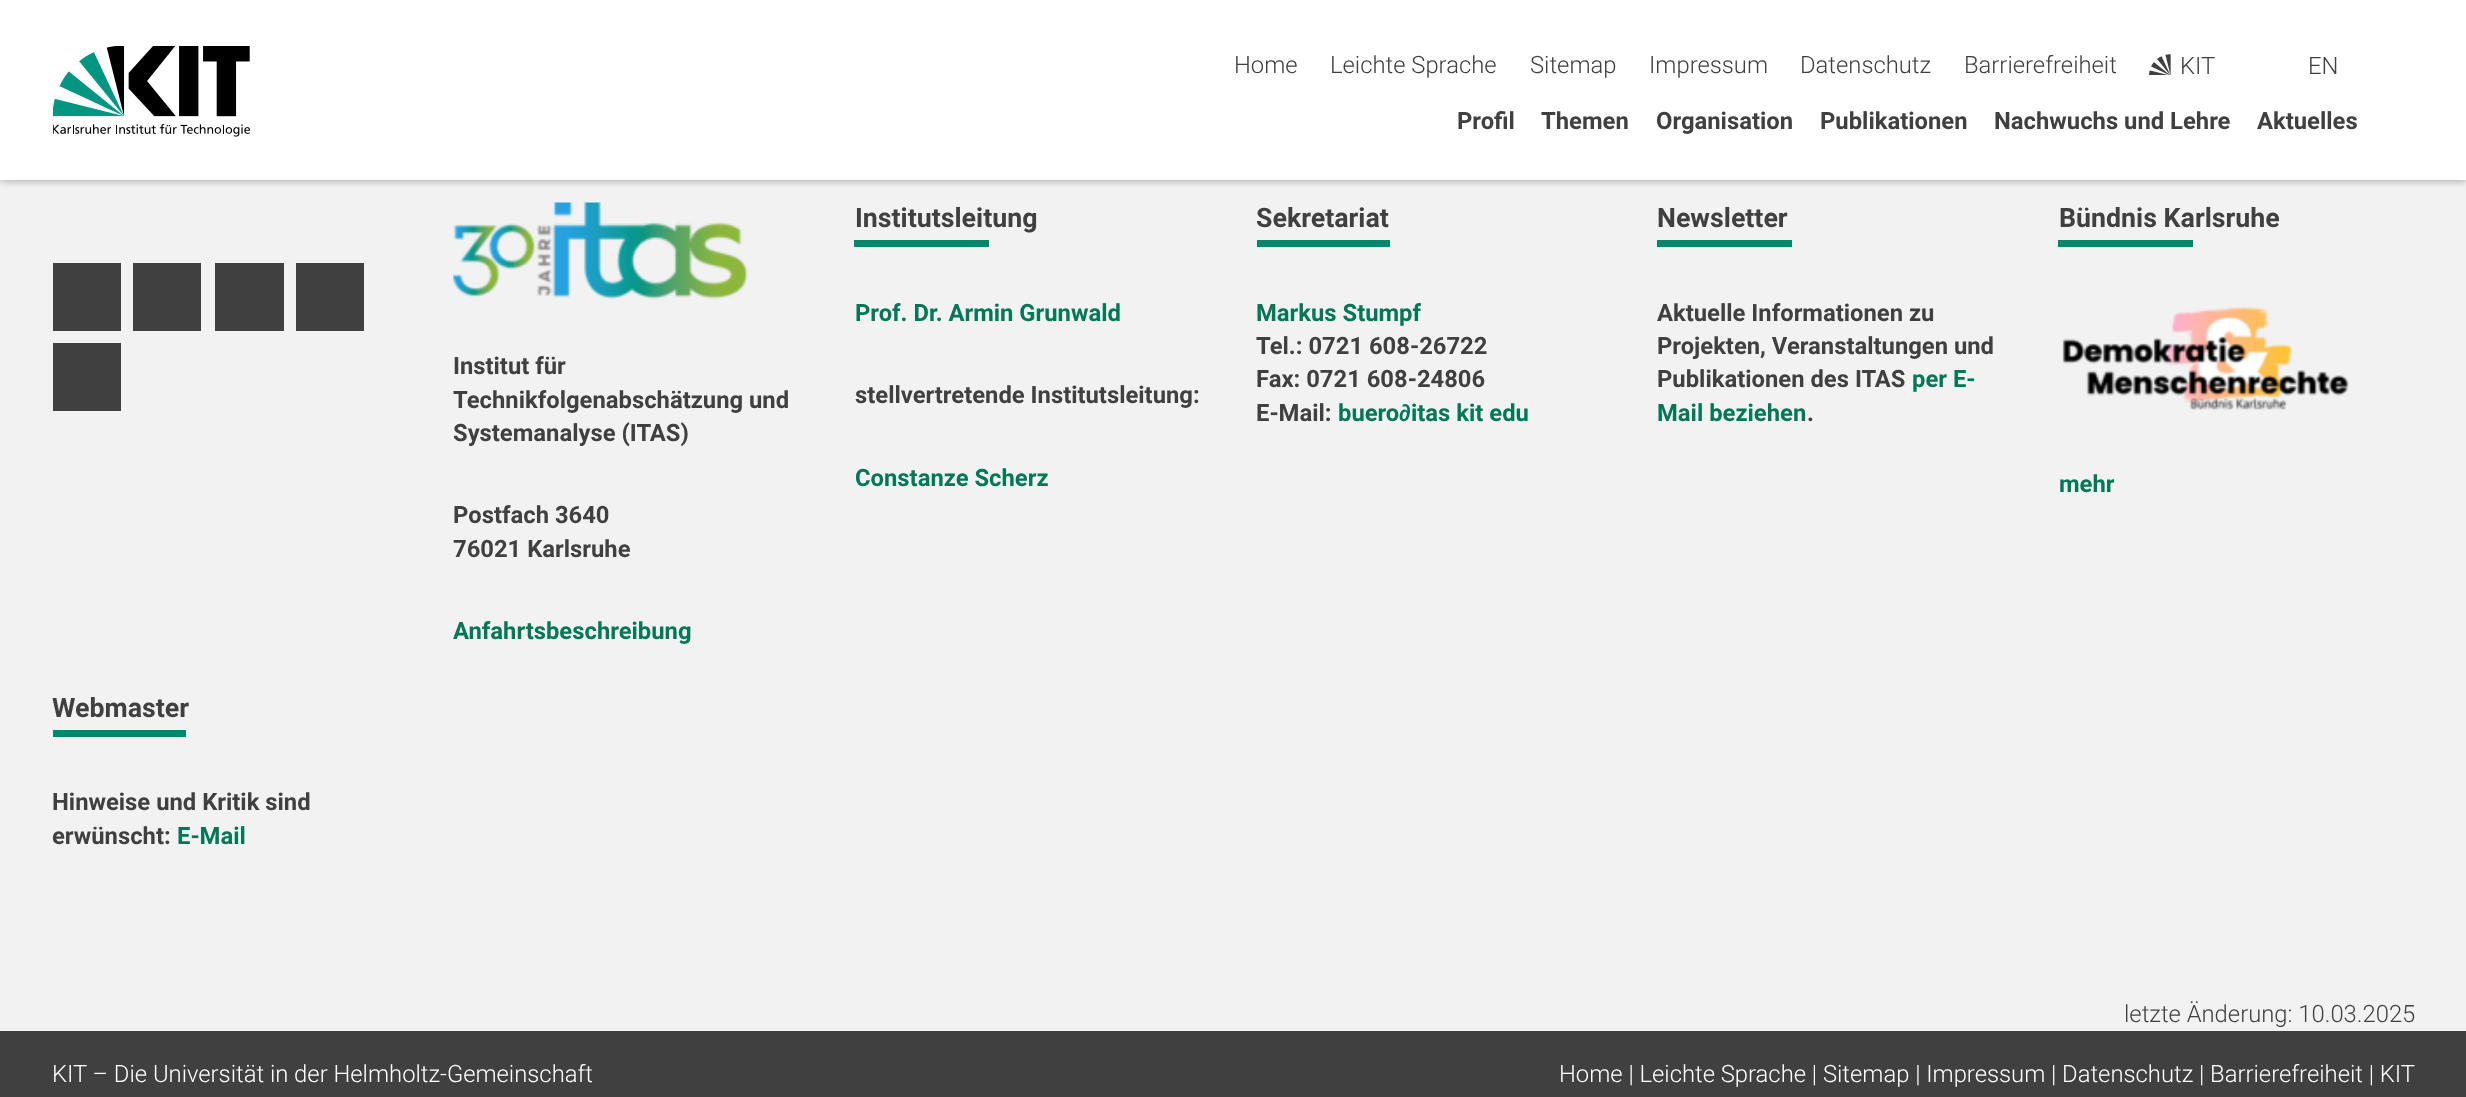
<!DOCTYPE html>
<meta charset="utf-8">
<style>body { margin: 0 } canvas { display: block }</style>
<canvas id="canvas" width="2466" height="1097"></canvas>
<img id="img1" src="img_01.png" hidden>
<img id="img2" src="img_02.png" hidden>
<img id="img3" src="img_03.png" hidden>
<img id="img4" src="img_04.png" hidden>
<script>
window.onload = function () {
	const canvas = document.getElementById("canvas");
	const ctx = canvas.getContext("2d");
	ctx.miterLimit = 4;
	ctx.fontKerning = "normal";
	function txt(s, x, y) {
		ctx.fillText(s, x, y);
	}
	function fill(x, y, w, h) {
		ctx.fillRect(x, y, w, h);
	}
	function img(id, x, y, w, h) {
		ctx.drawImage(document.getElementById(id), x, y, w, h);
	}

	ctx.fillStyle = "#F2F2F2";
	fill(0, 0, 2466, 1097);
	ctx.fillStyle = "rgba(64, 64, 64, 0.5)";
	ctx.filter = "blur(4.5px)";
	ctx.beginPath();
	ctx.rect(0, 0, 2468, 180);
	ctx.fill();
	ctx.filter = "none";
	ctx.fillStyle = "#FFFFFF";
	fill(0, 0, 2466, 180);
	img("img1", 53, 46, 197, 91);
	img("img2", 2149, 54, 22, 21);
	ctx.fillStyle = "#404040";
	fill(53, 263, 68, 68);
	fill(133, 263, 68, 68);
	fill(215, 263, 69, 68);
	fill(296, 263, 68, 68);
	fill(53, 343, 68, 68);
	ctx.fillStyle = "#00876C";
	fill(854, 240, 135, 7);
	fill(1257, 240, 133, 7);
	fill(1657, 240, 135, 7);
	fill(2058, 240, 135, 7);
	img("img3", 2062, 307, 287, 103);
	img("img4", 453, 202, 295, 98);
	fill(53, 730, 133, 7);
	ctx.fillStyle = "#404040";
	fill(0, 1031, 2466, 66);
	ctx.font = "300 23.8px Roboto";
	txt("Home", 1234, 73);
	txt("Leichte Sprache", 1330, 73);
	txt("Sitemap", 1530, 73);
	txt("Impressum", 1649, 73);
	txt("Datenschutz", 1800, 73);
	txt("Barrierefreiheit", 1964, 73);
	txt("KIT", 2180, 74);
	txt("EN", 2308, 74);
	ctx.font = "bold 23.8px Roboto";
	txt("Profil", 1457, 129);
	txt("Themen", 1541, 129);
	txt("Organisation", 1656, 129);
	txt("Publikationen", 1820, 129);
	txt("Nachwuchs und Lehre", 1994, 129);
	txt("Aktuelles", 2257, 129);
	ctx.font = "bold 26.75px Roboto";
	txt("Institutsleitung", 855, 227);
	ctx.font = "bold 23.8px Roboto";
	ctx.fillStyle = "#007755";
	txt("Prof. Dr. Armin Grunwald", 855, 321);
	ctx.fillStyle = "#404040";
	txt("stellvertretende Institutsleitung:", 855, 403);
	ctx.fillStyle = "#007755";
	txt("Constanze Scherz", 855, 486);
	ctx.font = "bold 26.75px Roboto";
	ctx.fillStyle = "#404040";
	txt("Sekretariat", 1256, 227);
	ctx.font = "bold 23.8px Roboto";
	ctx.fillStyle = "#007755";
	txt("Markus Stumpf", 1256, 321);
	ctx.fillStyle = "#404040";
	txt("Tel.: 0721 608-26722", 1256, 354);
	txt("Fax: 0721 608-24806", 1256, 387);
	txt("E-Mail:", 1256, 421);
	ctx.fillStyle = "#007755";
	txt("buero", 1338, 421);
	ctx.font = "bold 23.8px Liberation Sans";
	txt("∂", 1399, 421);
	ctx.font = "bold 23.8px Roboto";
	txt("itas kit edu", 1411, 421);
	ctx.font = "bold 26.75px Roboto";
	ctx.fillStyle = "#404040";
	txt("Newsletter", 1657, 227);
	ctx.font = "bold 23.8px Roboto";
	txt("Aktuelle Informationen zu", 1657, 321);
	txt("Projekten, Veranstaltungen und", 1657, 354);
	txt("Publikationen des ITAS", 1657, 387);
	ctx.fillStyle = "#007755";
	txt("per E-", 1912, 387);
	txt("Mail beziehen", 1657, 421);
	ctx.fillStyle = "#404040";
	txt(".", 1807, 421);
	ctx.font = "bold 26.75px Roboto";
	txt("Bündnis Karlsruhe", 2059, 227);
	ctx.font = "bold 23.8px Roboto";
	ctx.fillStyle = "#007755";
	txt("mehr", 2059, 492);
	ctx.fillStyle = "#404040";
	txt("Institut für", 453, 374);
	txt("Technikfolgenabschätzung und", 453, 408);
	txt("Systemanalyse (ITAS)", 453, 441);
	txt("Postfach 3640", 453, 523);
	txt("76021 Karlsruhe", 453, 557);
	ctx.fillStyle = "#007755";
	txt("Anfahrtsbeschreibung", 453, 639);
	ctx.font = "bold 26.75px Roboto";
	ctx.fillStyle = "#404040";
	txt("Webmaster", 52, 717);
	ctx.font = "bold 23.8px Roboto";
	txt("Hinweise und Kritik sind", 52, 810);
	txt("erwünscht:", 52, 844);
	ctx.fillStyle = "#007755";
	txt("E-Mail", 177, 844);
	ctx.font = "300 23.8px Roboto";
	ctx.fillStyle = "#404040";
	txt("letzte Änderung: 10.03.2025", 2124, 1022);
	ctx.fillStyle = "#FFFFFF";
	txt("KIT – Die Universität in der Helmholtz-Gemeinschaft", 52, 1082);
	txt("Home | Leichte Sprache | Sitemap | Impressum | Datenschutz | Barrierefreiheit | KIT", 1559, 1082);
};
</script>
